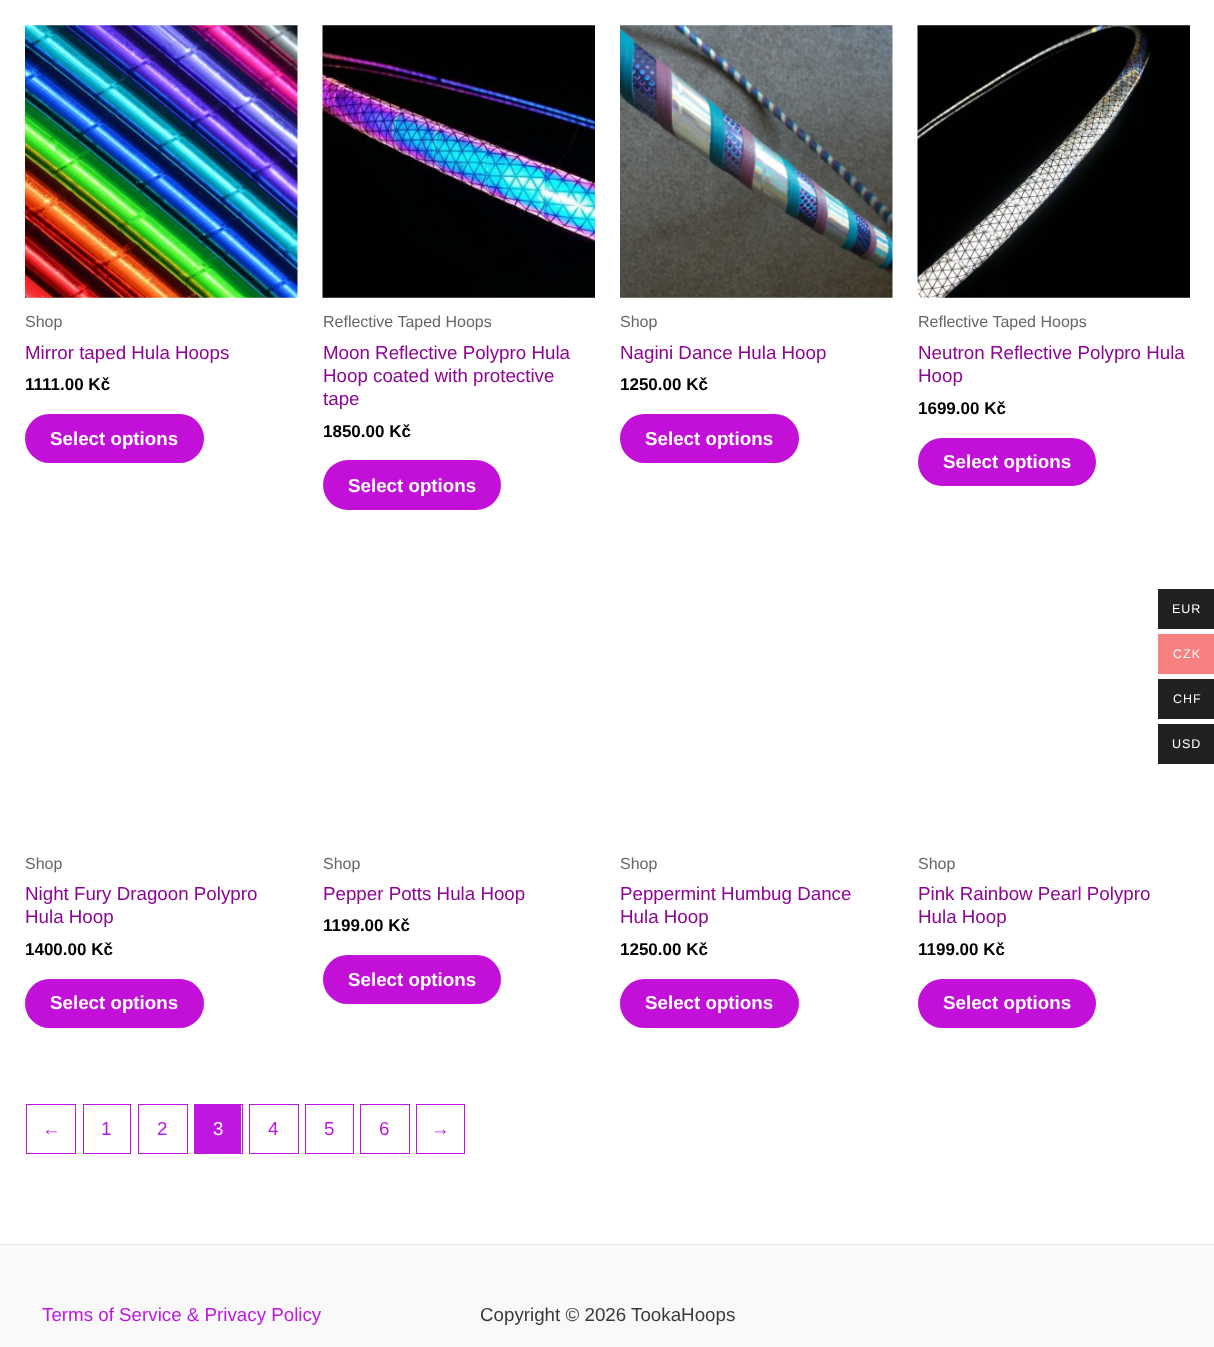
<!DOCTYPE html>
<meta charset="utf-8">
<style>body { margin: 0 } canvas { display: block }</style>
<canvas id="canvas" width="1214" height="1347"></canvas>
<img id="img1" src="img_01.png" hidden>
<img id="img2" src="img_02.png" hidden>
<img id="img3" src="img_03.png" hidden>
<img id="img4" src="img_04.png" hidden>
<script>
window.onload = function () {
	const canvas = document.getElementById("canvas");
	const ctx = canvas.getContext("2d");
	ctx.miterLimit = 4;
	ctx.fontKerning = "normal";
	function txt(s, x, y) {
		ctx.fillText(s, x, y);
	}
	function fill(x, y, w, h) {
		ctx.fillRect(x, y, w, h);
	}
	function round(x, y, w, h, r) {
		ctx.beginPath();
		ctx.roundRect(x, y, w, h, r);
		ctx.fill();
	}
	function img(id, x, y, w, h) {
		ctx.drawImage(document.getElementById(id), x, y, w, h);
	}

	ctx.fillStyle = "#FFFFFF";
	fill(0, 0, 1214, 1347);
	img("img1", 25, 25, 273, 273);
	ctx.fillStyle = "#C210D9";
	round(25, 414, 179, 49, 24.5);
	img("img2", 322, 25, 273, 273);
	round(323, 460, 178, 50, 25);
	img("img3", 620, 25, 273, 273);
	round(620, 414, 179, 49, 24.5);
	img("img4", 917, 25, 273, 273);
	round(918, 438, 178, 48, 24);
	round(25, 979, 179, 49, 24.5);
	round(323, 955, 178, 49, 24.5);
	round(620, 979, 179, 49, 24.5);
	round(918, 979, 178, 49, 24.5);
	ctx.strokeStyle = "#BE17DF";
	ctx.strokeRect(26.5, 1104.5, 49, 49);
	ctx.strokeRect(83.5, 1104.5, 47, 49);
	ctx.strokeRect(138.5, 1104.5, 49, 49);
	ctx.strokeRect(194.5, 1104.5, 48, 49);
	ctx.fillStyle = "#BE17DF";
	fill(195, 1105, 46, 48);
	ctx.strokeRect(249.5, 1104.5, 49, 49);
	ctx.strokeRect(305.5, 1104.5, 48, 49);
	ctx.strokeRect(360.5, 1104.5, 49, 49);
	ctx.strokeRect(416.5, 1104.5, 48, 49);
	ctx.fillStyle = "#F9F9F9";
	fill(0, 1245, 1214, 102);
	ctx.fillStyle = "#E6E6E6";
	fill(0, 1244, 1214, 1);
	ctx.fillStyle = "#212121";
	fill(1158, 589, 56, 40);
	ctx.fillStyle = "#F78080";
	fill(1158, 634, 56, 40);
	ctx.fillStyle = "#212121";
	fill(1158, 679, 56, 40);
	fill(1158, 724, 56, 40);
	ctx.font = "16px Liberation Sans";
	ctx.fillStyle = "#666666";
	txt("Shop", 25, 327);
	ctx.font = "18.75px Liberation Sans";
	ctx.fillStyle = "#8C0593";
	txt("Mirror taped Hula Hoops", 25, 359);
	ctx.font = "bold 17px Liberation Sans";
	ctx.fillStyle = "#000000";
	txt("1111.00 Kč", 25, 390);
	ctx.font = "bold 18.75px Liberation Sans";
	ctx.fillStyle = "#FFFFFF";
	txt("Select options", 50, 445);
	ctx.font = "16px Liberation Sans";
	ctx.fillStyle = "#666666";
	txt("Reflective Taped Hoops", 323, 327);
	ctx.font = "18.75px Liberation Sans";
	ctx.fillStyle = "#8C0593";
	txt("Moon Reflective Polypro Hula", 323, 359);
	txt("Hoop coated with protective", 323, 382);
	txt("tape", 323, 405);
	ctx.font = "bold 17px Liberation Sans";
	ctx.fillStyle = "#000000";
	txt("1850.00 Kč", 323, 437);
	ctx.font = "bold 18.75px Liberation Sans";
	ctx.fillStyle = "#FFFFFF";
	txt("Select options", 348, 492);
	ctx.font = "16px Liberation Sans";
	ctx.fillStyle = "#666666";
	txt("Shop", 620, 327);
	ctx.font = "18.75px Liberation Sans";
	ctx.fillStyle = "#8C0593";
	txt("Nagini Dance Hula Hoop", 620, 359);
	ctx.font = "bold 17px Liberation Sans";
	ctx.fillStyle = "#000000";
	txt("1250.00 Kč", 620, 390);
	ctx.font = "bold 18.75px Liberation Sans";
	ctx.fillStyle = "#FFFFFF";
	txt("Select options", 645, 445);
	ctx.font = "16px Liberation Sans";
	ctx.fillStyle = "#666666";
	txt("Reflective Taped Hoops", 918, 327);
	ctx.font = "18.75px Liberation Sans";
	ctx.fillStyle = "#8C0593";
	txt("Neutron Reflective Polypro Hula", 918, 359);
	txt("Hoop", 918, 382);
	ctx.font = "bold 17px Liberation Sans";
	ctx.fillStyle = "#000000";
	txt("1699.00 Kč", 918, 414);
	ctx.font = "bold 18.75px Liberation Sans";
	ctx.fillStyle = "#FFFFFF";
	txt("Select options", 943, 468);
	ctx.font = "16px Liberation Sans";
	ctx.fillStyle = "#666666";
	txt("Shop", 25, 869);
	ctx.font = "18.75px Liberation Sans";
	ctx.fillStyle = "#8C0593";
	txt("Night Fury Dragoon Polypro", 25, 900);
	txt("Hula Hoop", 25, 923);
	ctx.font = "bold 17px Liberation Sans";
	ctx.fillStyle = "#000000";
	txt("1400.00 Kč", 25, 955);
	ctx.font = "bold 18.75px Liberation Sans";
	ctx.fillStyle = "#FFFFFF";
	txt("Select options", 50, 1009);
	ctx.font = "16px Liberation Sans";
	ctx.fillStyle = "#666666";
	txt("Shop", 323, 869);
	ctx.font = "18.75px Liberation Sans";
	ctx.fillStyle = "#8C0593";
	txt("Pepper Potts Hula Hoop", 323, 900);
	ctx.font = "bold 17px Liberation Sans";
	ctx.fillStyle = "#000000";
	txt("1199.00 Kč", 323, 931);
	ctx.font = "bold 18.75px Liberation Sans";
	ctx.fillStyle = "#FFFFFF";
	txt("Select options", 348, 986);
	ctx.font = "16px Liberation Sans";
	ctx.fillStyle = "#666666";
	txt("Shop", 620, 869);
	ctx.font = "18.75px Liberation Sans";
	ctx.fillStyle = "#8C0593";
	txt("Peppermint Humbug Dance", 620, 900);
	txt("Hula Hoop", 620, 923);
	ctx.font = "bold 17px Liberation Sans";
	ctx.fillStyle = "#000000";
	txt("1250.00 Kč", 620, 955);
	ctx.font = "bold 18.75px Liberation Sans";
	ctx.fillStyle = "#FFFFFF";
	txt("Select options", 645, 1009);
	ctx.font = "16px Liberation Sans";
	ctx.fillStyle = "#666666";
	txt("Shop", 918, 869);
	ctx.font = "18.75px Liberation Sans";
	ctx.fillStyle = "#8C0593";
	txt("Pink Rainbow Pearl Polypro", 918, 900);
	txt("Hula Hoop", 918, 923);
	ctx.font = "bold 17px Liberation Sans";
	ctx.fillStyle = "#000000";
	txt("1199.00 Kč", 918, 955);
	ctx.font = "bold 18.75px Liberation Sans";
	ctx.fillStyle = "#FFFFFF";
	txt("Select options", 943, 1009);
	ctx.font = "18.75px Liberation Sans";
	ctx.fillStyle = "#BE17DF";
	txt("←", 42, 1135);
	txt("1", 101, 1135);
	txt("2", 157, 1135);
	ctx.fillStyle = "#FFFFFF";
	txt("3", 213, 1135);
	ctx.fillStyle = "#BE17DF";
	txt("4", 268, 1135);
	txt("5", 324, 1135);
	txt("6", 379, 1135);
	txt("→", 431, 1135);
	txt("Terms of Service & Privacy Policy", 42, 1321);
	ctx.fillStyle = "#3A3A3A";
	txt("Copyright © 2026 TookaHoops", 480, 1321);
	ctx.letterSpacing = "1px";
	ctx.font = "12.5px Liberation Sans";
	ctx.fillStyle = "#FFFFFF";
	txt("EUR", 1172, 613);
	txt("CZK", 1173, 658);
	txt("CHF", 1173, 703);
	txt("USD", 1172, 748);
};
</script>
